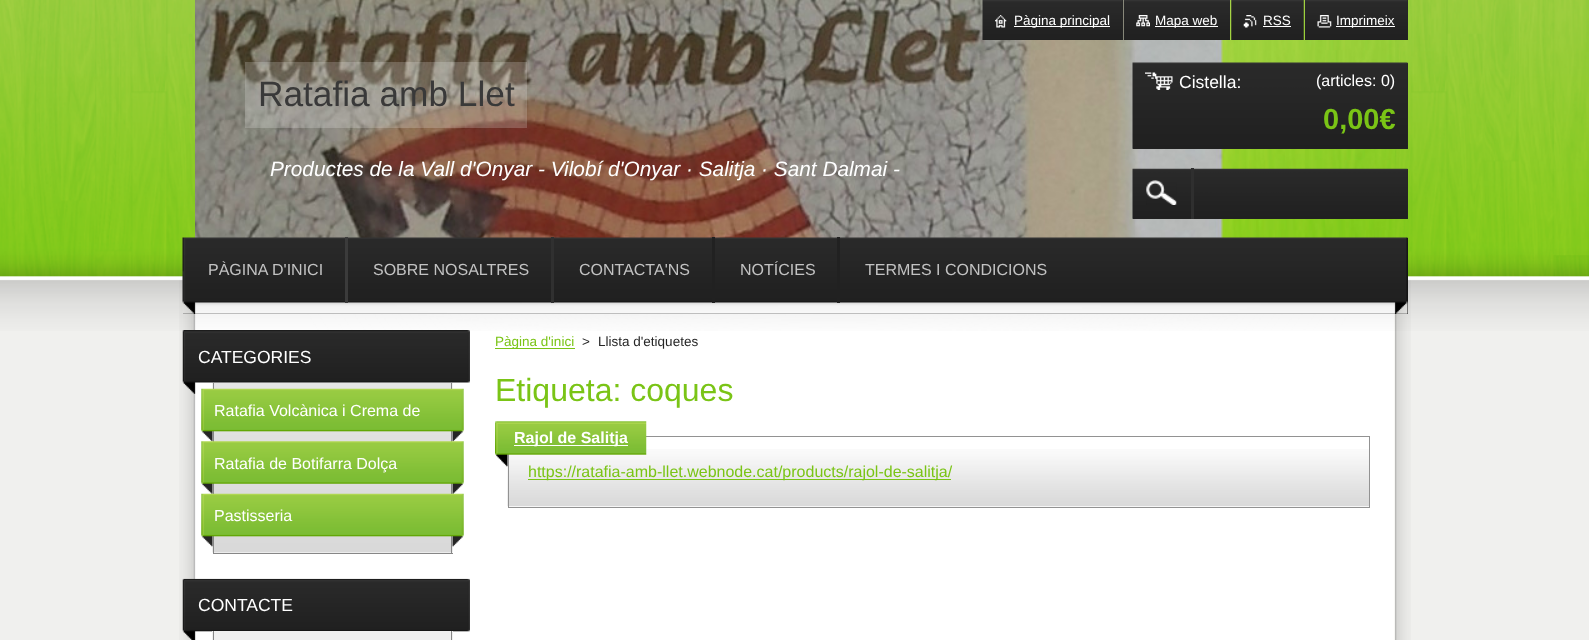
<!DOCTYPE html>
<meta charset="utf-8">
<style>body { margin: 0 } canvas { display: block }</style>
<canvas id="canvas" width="1589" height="640"></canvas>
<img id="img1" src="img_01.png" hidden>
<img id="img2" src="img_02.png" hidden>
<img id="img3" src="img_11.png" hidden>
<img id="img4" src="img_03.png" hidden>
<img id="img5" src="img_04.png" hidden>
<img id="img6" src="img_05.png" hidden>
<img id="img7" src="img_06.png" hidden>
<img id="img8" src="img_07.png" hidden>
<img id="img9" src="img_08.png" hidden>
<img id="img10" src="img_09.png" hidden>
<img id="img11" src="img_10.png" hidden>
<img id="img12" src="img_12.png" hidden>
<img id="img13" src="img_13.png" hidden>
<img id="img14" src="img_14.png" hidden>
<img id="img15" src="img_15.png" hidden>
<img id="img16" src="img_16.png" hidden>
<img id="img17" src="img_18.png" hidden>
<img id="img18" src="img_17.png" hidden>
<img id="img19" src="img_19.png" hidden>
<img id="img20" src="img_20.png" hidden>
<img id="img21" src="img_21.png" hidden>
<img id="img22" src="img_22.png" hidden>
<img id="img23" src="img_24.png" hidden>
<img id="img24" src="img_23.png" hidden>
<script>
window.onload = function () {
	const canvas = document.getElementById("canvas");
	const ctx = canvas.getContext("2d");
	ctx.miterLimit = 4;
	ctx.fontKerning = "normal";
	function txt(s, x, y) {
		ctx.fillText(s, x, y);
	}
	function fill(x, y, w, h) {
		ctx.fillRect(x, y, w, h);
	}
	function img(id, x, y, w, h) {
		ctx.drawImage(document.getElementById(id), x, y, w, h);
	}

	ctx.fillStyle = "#F0F0EE";
	fill(0, 0, 1589, 640);
	img("img1", 179, 279, 1232, 361);
	img("img2", 0, 0, 1589, 331);
	img("img3", 195, 0, 1200, 238);
	ctx.fillStyle = "#252525";
	fill(1122, 0, 1, 40);
	img("img4", 982, 0, 141, 40);
	img("img5", 995, 15, 12, 13);
	ctx.fillStyle = "#FFFFFF";
	fill(1014, 26, 96, 1);
	img("img6", 1123, 0, 107, 40);
	img("img7", 1136, 15, 14, 12);
	fill(1155, 26, 63, 1);
	img("img8", 1231, 0, 73, 40);
	img("img9", 1243, 15, 14, 13);
	fill(1263, 26, 28, 1);
	ctx.fillStyle = "#252525";
	fill(1407, 0, 1, 40);
	img("img10", 1305, 0, 103, 40);
	img("img11", 1317, 15, 15, 13);
	ctx.fillStyle = "#FFFFFF";
	fill(1336, 26, 59, 1);
	ctx.fillStyle = "rgba(255, 255, 255, 0.2)";
	fill(245, 62, 282, 66);
	ctx.fillStyle = "#252525";
	fill(1133, 63, 275, 86);
	img("img12", 1132, 62, 276, 87);
	img("img13", 1145, 72, 28, 18);
	fill(1133, 169, 275, 50);
	img("img14", 1132, 168, 276, 51);
	img("img15", 1146, 180, 31, 25);
	ctx.fillStyle = "#2F2F2F";
	fill(1191, 168, 3, 51);
	ctx.fillStyle = "#121212";
	fill(183, 238, 1225, 76);
	img("img16", 182, 237, 1226, 77);
	ctx.fillStyle = "#3B3B3B";
	fill(345, 237, 3, 66);
	ctx.fillStyle = "#303030";
	fill(551, 237, 3, 66);
	ctx.fillStyle = "#212121";
	fill(712, 237, 3, 66);
	fill(837, 237, 3, 66);
	img("img17", 212, 382, 241, 171);
	ctx.fillStyle = "#878787";
	fill(451, 383, 1, 171);
	fill(213, 553, 240, 1);
	fill(213, 383, 1, 171);
	img("img18", 182, 330, 288, 64);
	img("img19", 201, 388, 263, 54);
	img("img20", 201, 441, 263, 53);
	img("img21", 201, 493, 263, 54);
	img("img22", 182, 578, 288, 62);
	ctx.fillStyle = "#F0F0F0";
	fill(212, 631, 241, 9);
	ctx.fillStyle = "#878787";
	fill(451, 631, 1, 9);
	fill(213, 631, 1, 9);
	ctx.fillStyle = "#7AC416";
	fill(495, 348, 80, 1);
	img("img23", 507, 449, 862, 58);
	ctx.strokeStyle = "#929292";
	ctx.strokeRect(508.5, 436.5, 861, 71);
	fill(528, 479, 423, 1);
	ctx.font = "13.5px Liberation Sans";
	ctx.fillStyle = "#FFFFFF";
	txt("Pàgina principal", 1014, 25);
	txt("Mapa web", 1155, 25);
	txt("RSS", 1263, 25);
	txt("Imprimeix", 1336, 25);
	ctx.font = "35.25px Liberation Sans";
	ctx.fillStyle = "#393939";
	txt("Ratafia amb Llet", 258, 106);
	ctx.font = "italic 20.8px Liberation Sans";
	ctx.fillStyle = "#FFFFFF";
	txt("Productes de la Vall d'Onyar - Vilobí d'Onyar · Salitja · Sant Dalmai -", 270, 176);
	ctx.font = "17.5px Liberation Sans";
	txt("Cistella:", 1179, 88);
	ctx.font = "16px Liberation Sans";
	txt("(articles: 0)", 1316, 86);
	ctx.font = "bold 29px Liberation Sans";
	ctx.fillStyle = "#7AC416";
	txt("0,00€", 1323, 129);
	ctx.font = "16px Liberation Sans";
	ctx.fillStyle = "#C2C2C2";
	txt("PÀGINA D'INICI", 208, 275);
	txt("SOBRE NOSALTRES", 373, 275);
	txt("CONTACTA'NS", 579, 275);
	txt("NOTÍCIES", 740, 275);
	txt("TERMES I CONDICIONS", 865, 275);
	ctx.font = "17.5px Liberation Sans";
	ctx.fillStyle = "#FFFFFF";
	txt("CATEGORIES", 198, 363);
	ctx.font = "16px Liberation Sans";
	txt("Ratafia Volcànica i Crema de", 214, 416);
	txt("Ratafia de Botifarra Dolça", 214, 469);
	txt("Pastisseria", 214, 521);
	ctx.font = "17.5px Liberation Sans";
	txt("CONTACTE", 198, 611);
	ctx.font = "13.5px Liberation Sans";
	ctx.fillStyle = "#7AC416";
	txt("Pàgina d'inici", 495, 346);
	ctx.fillStyle = "#252525";
	txt(">", 582, 346);
	txt("Llista d'etiquetes", 598, 346);
	ctx.font = "32px Liberation Sans";
	ctx.fillStyle = "#7AC416";
	txt("Etiqueta: coques", 495, 401);
	ctx.font = "16px Liberation Sans";
	txt("https://ratafia-amb-llet.webnode.cat/products/rajol-de-salitja/", 528, 477);
	img("img24", 495, 421, 152, 46);
	ctx.fillStyle = "#FFFFFF";
	fill(514, 445, 114, 1);
	ctx.font = "bold 16px Liberation Sans";
	txt("Rajol de Salitja", 514, 443);
};
</script>
